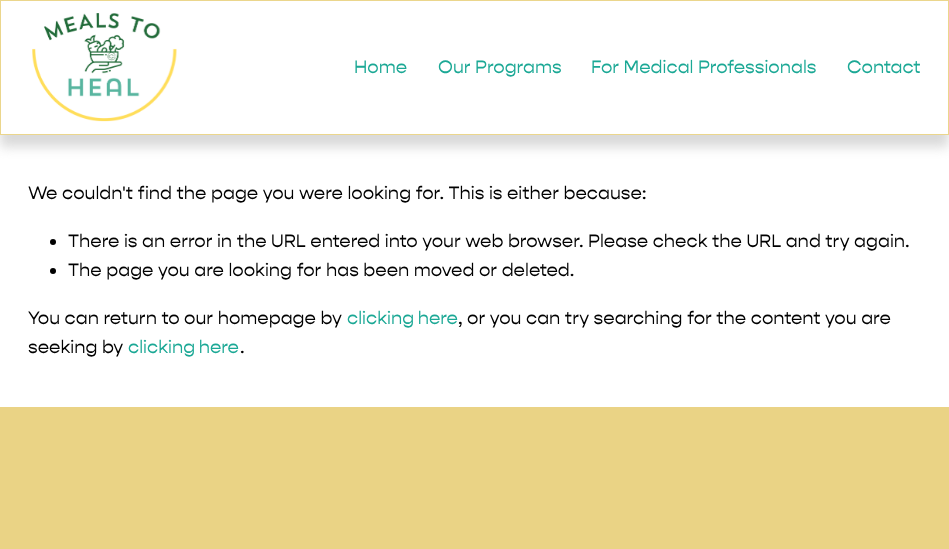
<!DOCTYPE html>
<meta charset="utf-8">
<style>body { margin: 0 } canvas { display: block }</style>
<canvas id="canvas" width="949" height="549"></canvas>
<img id="img1" src="img_01.png" hidden>
<script>
window.onload = function () {
	const canvas = document.getElementById("canvas");
	const ctx = canvas.getContext("2d");
	ctx.miterLimit = 4;
	ctx.fontKerning = "normal";
	function txt(s, x, y) {
		ctx.fillText(s, x, y);
	}
	function fill(x, y, w, h) {
		ctx.fillRect(x, y, w, h);
	}
	function img(id, x, y, w, h) {
		ctx.drawImage(document.getElementById(id), x, y, w, h);
	}

	ctx.fillStyle = "#FFFFFF";
	fill(0, 0, 949, 549);
	ctx.save();
	ctx.beginPath();
	ctx.rect(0, 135, 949, 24);
	ctx.clip();
	ctx.fillStyle = "#D9D9D9";
	ctx.filter = "blur(6px)";
	ctx.beginPath();
	ctx.rect(0, 12, 949, 135);
	ctx.fill();
	ctx.filter = "none";
	ctx.restore();
	ctx.strokeStyle = "#EBD68C";
	ctx.strokeRect(0.5, 0.5, 948, 134);
	img("img1", 32, 13, 145, 109);
	ctx.fillStyle = "#000000";
	ctx.beginPath();
	ctx.arc(53, 242, 3, 0, Math.PI * 2);
	ctx.fill();
	ctx.beginPath();
	ctx.arc(53, 271, 3, 0, Math.PI * 2);
	ctx.fill();
	ctx.fillStyle = "#EAD385";
	fill(0, 407, 949, 142);
	ctx.font = "18.3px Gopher";
	ctx.fillStyle = "#1BA895";
	txt("Home", 354, 73);
	txt("Our Programs", 438, 73);
	txt("For Medical Professionals", 591, 73);
	txt("Contact", 847, 73);
	ctx.fillStyle = "#000000";
	txt("We couldn't find the page you were looking for. This is either because:", 28, 199);
	txt("There is an error in the URL entered into your web browser. Please check the URL and try again.", 68, 247);
	txt("The page you are looking for has been moved or deleted.", 68, 276);
	txt("You can return to our homepage by", 28, 324);
	ctx.wordSpacing = "-1px";
	ctx.fillStyle = "#1BA895";
	txt("clicking here", 347, 324);
	ctx.wordSpacing = "0px";
	ctx.fillStyle = "#000000";
	txt(", or you can try searching for the content you are", 458, 324);
	txt("seeking by", 28, 353);
	ctx.wordSpacing = "-1px";
	ctx.fillStyle = "#1BA895";
	txt("clicking here", 128, 353);
	ctx.wordSpacing = "0px";
	ctx.fillStyle = "#000000";
	txt(".", 240, 353);
};
</script>
